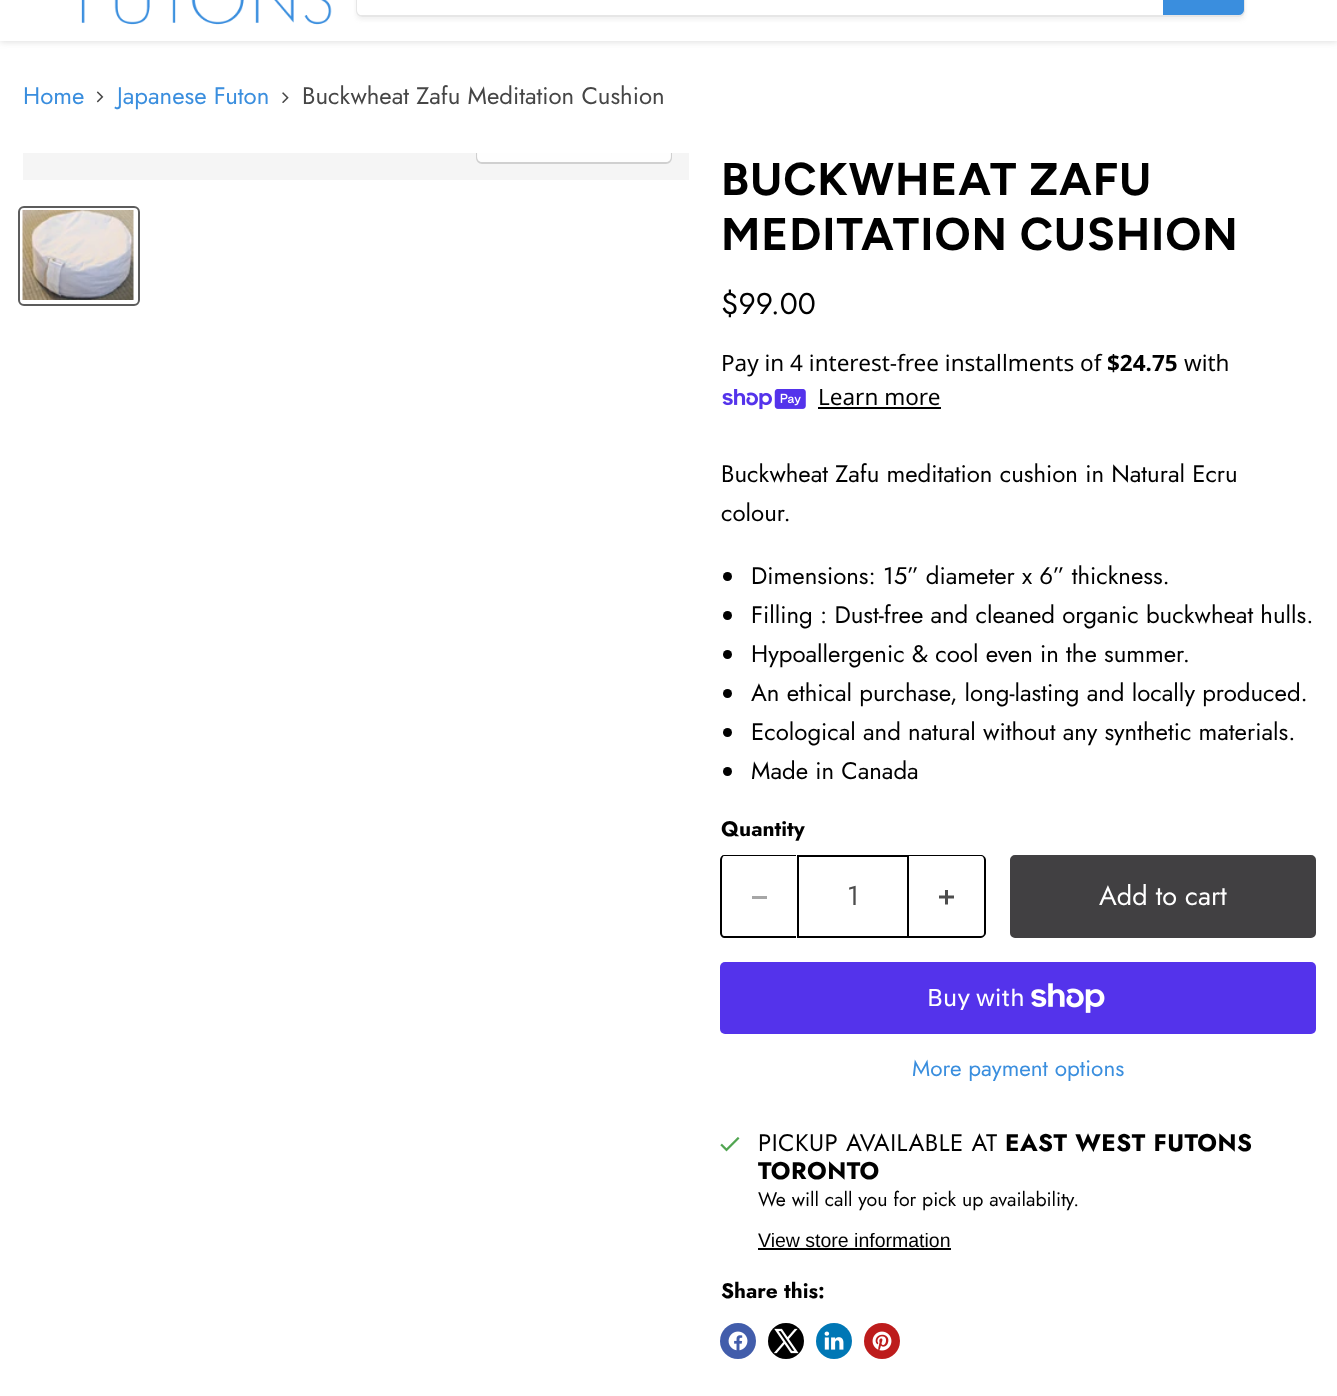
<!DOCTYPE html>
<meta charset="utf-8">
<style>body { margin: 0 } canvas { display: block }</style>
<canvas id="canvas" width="1337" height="1396"></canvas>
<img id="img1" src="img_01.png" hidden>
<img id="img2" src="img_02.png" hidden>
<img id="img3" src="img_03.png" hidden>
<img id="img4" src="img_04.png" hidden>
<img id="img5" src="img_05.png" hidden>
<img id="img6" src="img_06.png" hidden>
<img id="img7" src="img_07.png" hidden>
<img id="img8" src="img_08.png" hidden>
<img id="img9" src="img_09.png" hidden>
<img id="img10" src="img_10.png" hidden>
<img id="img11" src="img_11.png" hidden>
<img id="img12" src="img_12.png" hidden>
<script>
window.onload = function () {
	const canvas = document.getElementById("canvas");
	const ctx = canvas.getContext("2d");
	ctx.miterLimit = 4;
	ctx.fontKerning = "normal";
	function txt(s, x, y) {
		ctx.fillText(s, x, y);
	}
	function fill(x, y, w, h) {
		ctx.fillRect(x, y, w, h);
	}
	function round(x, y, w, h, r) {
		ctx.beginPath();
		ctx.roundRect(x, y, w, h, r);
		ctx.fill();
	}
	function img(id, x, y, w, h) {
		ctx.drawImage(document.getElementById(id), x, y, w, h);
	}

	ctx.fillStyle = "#FFFFFF";
	fill(0, 0, 1337, 1396);
	ctx.fillStyle = "rgba(128, 128, 128, 0.25)";
	ctx.filter = "blur(3px)";
	ctx.beginPath();
	ctx.rect(0, -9, 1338, 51);
	ctx.fill();
	ctx.filter = "none";
	ctx.fillStyle = "#FFFFFF";
	fill(0, 0, 1337, 41);
	img("img1", 81, 0, 251, 25);
	ctx.save();
	ctx.beginPath();
	ctx.moveTo(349, 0);
	ctx.lineTo(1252, 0);
	ctx.lineTo(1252, 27);
	ctx.lineTo(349, 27);
	ctx.closePath();
	ctx.moveTo(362, -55);
	ctx.lineTo(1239, -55);
	ctx.bezierCurveTo(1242.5, -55, 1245, -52.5, 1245, -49);
	ctx.lineTo(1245, 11);
	ctx.bezierCurveTo(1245, 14.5, 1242.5, 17, 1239, 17);
	ctx.lineTo(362, 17);
	ctx.bezierCurveTo(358.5, 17, 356, 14.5, 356, 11);
	ctx.lineTo(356, -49);
	ctx.bezierCurveTo(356, -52.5, 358.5, -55, 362, -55);
	ctx.closePath();
	ctx.clip("evenodd");
	ctx.fillStyle = "rgba(128, 128, 128, 0.11)";
	ctx.filter = "blur(2px)";
	ctx.beginPath();
	ctx.roundRect(356, -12, 889, 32, 6);
	ctx.fill();
	ctx.filter = "none";
	ctx.restore();
	ctx.beginPath();
	ctx.roundRect(357, -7, 887, 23, 5);
	ctx.strokeStyle = "rgba(128, 128, 128, 0.2)";
	ctx.lineWidth = 2;
	ctx.stroke();
	ctx.beginPath();
	ctx.moveTo(362, -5);
	ctx.lineTo(1163, -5);
	ctx.lineTo(1163, 15);
	ctx.lineTo(362, 15);
	ctx.bezierCurveTo(359, 15, 357, 13, 357, 10);
	ctx.lineTo(357, 0);
	ctx.bezierCurveTo(357, -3, 359, -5, 362, -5);
	ctx.closePath();
	ctx.fill();
	ctx.fillStyle = "#3A8EDE";
	ctx.beginPath();
	ctx.moveTo(1164, -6);
	ctx.lineTo(1239, -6);
	ctx.bezierCurveTo(1241, -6, 1243, -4, 1243, -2);
	ctx.lineTo(1243, 10);
	ctx.bezierCurveTo(1243, 12, 1241, 14, 1239, 14);
	ctx.lineTo(1164, 14);
	ctx.closePath();
	ctx.fill();
	ctx.strokeStyle = "#3A8EDE";
	ctx.stroke();
	img("img2", 96, 91, 8, 12);
	img("img3", 282, 92, 7, 11);
	ctx.fillStyle = "#F5F5F5";
	fill(23, 153, 666, 27);
	ctx.save();
	ctx.beginPath();
	ctx.rect(23, 153, 666, 27);
	ctx.clip();
	ctx.beginPath();
	ctx.roundRect(477, 120, 194, 43, 5);
	ctx.strokeStyle = "#D0D0D0";
	ctx.stroke();
	ctx.restore();
	ctx.fillStyle = "rgba(255, 255, 255, 0.9)";
	ctx.beginPath();
	ctx.roundRect(477, 153, 194, 9, [0, 0, 5, 5]);
	ctx.fill();
	ctx.beginPath();
	ctx.roundRect(19, 207, 120, 98, 5);
	ctx.strokeStyle = "#5C5C5C";
	ctx.stroke();
	img("img4", 22, 210, 112, 90);
	img("img5", 722, 389, 84, 21);
	ctx.fillStyle = "#000000";
	fill(818, 407, 123, 2);
	ctx.beginPath();
	ctx.arc(727.5, 576.5, 4.5, 0, Math.PI * 2);
	ctx.fill();
	ctx.beginPath();
	ctx.arc(727.5, 615.5, 4.5, 0, Math.PI * 2);
	ctx.fill();
	ctx.beginPath();
	ctx.arc(727.5, 654.5, 4.5, 0, Math.PI * 2);
	ctx.fill();
	ctx.beginPath();
	ctx.arc(727.5, 693.5, 4.5, 0, Math.PI * 2);
	ctx.fill();
	ctx.beginPath();
	ctx.arc(727.5, 732.5, 4.5, 0, Math.PI * 2);
	ctx.fill();
	ctx.beginPath();
	ctx.arc(727.5, 771.5, 4.5, 0, Math.PI * 2);
	ctx.fill();
	ctx.beginPath();
	ctx.moveTo(724, 855);
	ctx.lineTo(796, 855);
	ctx.lineTo(796, 938);
	ctx.lineTo(724, 938);
	ctx.bezierCurveTo(722, 938, 720, 935, 720, 933);
	ctx.lineTo(720, 860);
	ctx.bezierCurveTo(720, 857, 722, 855, 724, 855);
	ctx.closePath();
	ctx.moveTo(724, 856);
	ctx.lineTo(796, 856);
	ctx.lineTo(796, 936);
	ctx.lineTo(724, 936);
	ctx.bezierCurveTo(723, 936, 722, 935, 722, 933);
	ctx.lineTo(722, 860);
	ctx.bezierCurveTo(722, 858, 723, 856, 724, 856);
	ctx.closePath();
	ctx.fill("evenodd");
	ctx.fillStyle = "#A6A6A6";
	fill(752, 896, 15, 3);
	ctx.strokeStyle = "#000000";
	ctx.strokeRect(798, 856, 110, 81);
	ctx.fillStyle = "#000000";
	ctx.beginPath();
	ctx.moveTo(909, 855);
	ctx.lineTo(981, 855);
	ctx.bezierCurveTo(983, 855, 986, 857, 986, 860);
	ctx.lineTo(986, 933);
	ctx.bezierCurveTo(986, 935, 983, 938, 981, 938);
	ctx.lineTo(909, 938);
	ctx.closePath();
	ctx.moveTo(909, 856);
	ctx.lineTo(981, 856);
	ctx.bezierCurveTo(983, 856, 984, 858, 984, 860);
	ctx.lineTo(984, 933);
	ctx.bezierCurveTo(984, 935, 983, 936, 981, 936);
	ctx.lineTo(909, 936);
	ctx.closePath();
	ctx.fill("evenodd");
	img("img6", 939, 890, 15, 15);
	ctx.fillStyle = "#414042";
	ctx.beginPath();
	ctx.roundRect(1011, 856, 304, 81, 4);
	ctx.fill();
	ctx.strokeStyle = "#414042";
	ctx.stroke();
	ctx.fillStyle = "#5433EB";
	round(720, 962, 596, 72, 5);
	img("img7", 1031, 983, 74, 30);
	img("img8", 720, 1137, 20, 15);
	ctx.fillStyle = "#000000";
	fill(758, 1248, 193, 2);
	ctx.fillStyle = "#425DAB";
	ctx.beginPath();
	ctx.arc(738, 1341, 18, 0, Math.PI * 2);
	ctx.fill();
	img("img9", 728, 1331, 20, 20);
	ctx.fillStyle = "#000000";
	ctx.beginPath();
	ctx.arc(786, 1341, 18, 0, Math.PI * 2);
	ctx.fill();
	img("img10", 773, 1328, 26, 26);
	ctx.fillStyle = "#0077B5";
	ctx.beginPath();
	ctx.arc(834, 1341, 18, 0, Math.PI * 2);
	ctx.fill();
	img("img11", 824, 1331, 20, 19);
	ctx.fillStyle = "#BD1C1C";
	ctx.beginPath();
	ctx.arc(882, 1341, 18, 0, Math.PI * 2);
	ctx.fill();
	img("img12", 872, 1331, 20, 20);
	ctx.font = "24px Jost";
	ctx.fillStyle = "#3A8EDE";
	txt("Home", 23, 104);
	txt("Japanese Futon", 117, 104);
	ctx.fillStyle = "#464646";
	txt("Buckwheat Zafu Meditation Cushion", 302, 104);
	ctx.letterSpacing = "0.9px";
	ctx.font = "bold 45.9px Figtree";
	ctx.fillStyle = "#000000";
	txt("BUCKWHEAT ZAFU", 721, 195);
	txt("MEDITATION CUSHION", 721, 250);
	ctx.letterSpacing = "0px";
	ctx.font = "30px Jost";
	txt("$99.00", 721, 314);
	ctx.font = "22.5px Noto Sans";
	txt("Pay in 4 interest-free installments of", 721, 371);
	ctx.font = "bold 22.5px Noto Sans";
	txt("$24.75", 1107, 371);
	ctx.font = "22.5px Noto Sans";
	txt("with", 1184, 371);
	txt("Learn more", 818, 405);
	ctx.font = "24px Jost";
	txt("Buckwheat Zafu meditation cushion in Natural Ecru", 721, 482);
	txt("colour.", 721, 521);
	txt("Dimensions: 15” diameter x 6” thickness.", 751, 584);
	txt("Filling : Dust-free and cleaned organic buckwheat hulls.", 751, 623);
	txt("Hypoallergenic & cool even in the summer.", 751, 662);
	txt("An ethical purchase, long-lasting and locally produced.", 751, 701);
	txt("Ecological and natural without any synthetic materials.", 751, 740);
	txt("Made in Canada", 751, 779);
	ctx.font = "bold 21px Jost";
	txt("Quantity", 721, 836);
	ctx.font = "27px Jost";
	ctx.fillStyle = "#4D4D4D";
	txt("1", 847, 905);
	ctx.fillStyle = "#FFFFFF";
	txt("Add to cart", 1099, 905);
	ctx.font = "24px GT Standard";
	txt("Buy with", 927, 1006);
	ctx.font = "22.5px Jost";
	ctx.fillStyle = "#3A8EDE";
	txt("More payment options", 912, 1076);
	ctx.letterSpacing = "0.5px";
	ctx.font = "24px Jost";
	ctx.fillStyle = "#000000";
	txt("PICKUP AVAILABLE AT", 758, 1151);
	ctx.font = "bold 24px Jost";
	txt("EAST WEST FUTONS", 1005, 1151);
	txt("TORONTO", 758, 1179);
	ctx.letterSpacing = "0px";
	ctx.font = "19.5px Jost";
	txt("We will call you for pick up availability.", 758, 1206);
	ctx.font = "19.5px Liberation Sans";
	txt("View store information", 758, 1247);
	ctx.font = "bold 21px Jost";
	txt("Share this:", 721, 1298);
};
</script>
